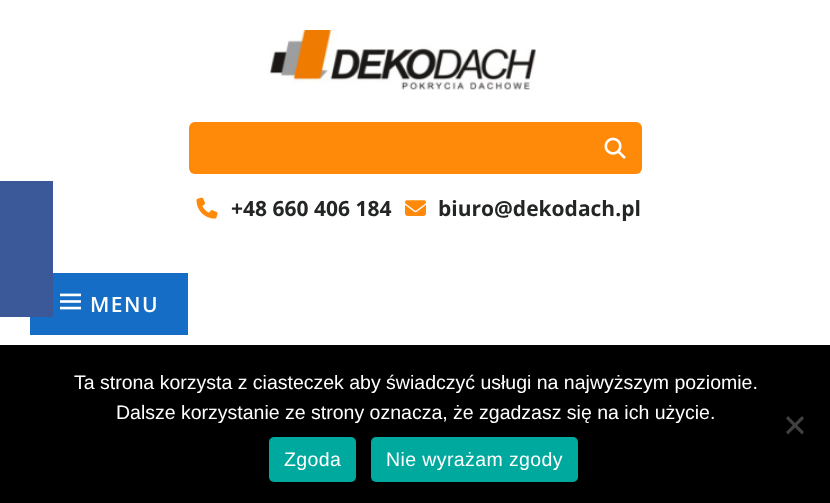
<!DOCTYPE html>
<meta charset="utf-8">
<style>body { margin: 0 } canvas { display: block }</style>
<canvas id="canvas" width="830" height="503"></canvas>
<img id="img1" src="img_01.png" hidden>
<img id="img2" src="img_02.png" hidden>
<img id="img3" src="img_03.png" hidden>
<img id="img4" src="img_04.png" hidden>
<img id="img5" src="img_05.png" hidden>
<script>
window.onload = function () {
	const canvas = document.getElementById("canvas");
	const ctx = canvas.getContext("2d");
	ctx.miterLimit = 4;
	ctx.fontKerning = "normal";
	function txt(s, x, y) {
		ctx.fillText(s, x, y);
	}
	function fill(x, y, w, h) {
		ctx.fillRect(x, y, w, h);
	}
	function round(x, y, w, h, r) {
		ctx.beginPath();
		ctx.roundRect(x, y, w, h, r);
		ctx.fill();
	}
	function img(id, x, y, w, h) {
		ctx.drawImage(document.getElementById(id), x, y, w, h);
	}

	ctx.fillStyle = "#FFFFFF";
	fill(0, 0, 830, 503);
	ctx.fillStyle = "#166DC5";
	fill(30, 273, 158, 62);
	ctx.fillStyle = "#3B5998";
	fill(0, 181, 53, 136);
	img("img1", 268, 30, 268, 60);
	ctx.fillStyle = "#FF8A09";
	round(189, 122, 453, 52, 6);
	img("img2", 604, 137, 22, 22);
	img("img3", 196, 197, 22, 22);
	img("img4", 405, 200, 21, 16);
	img("img5", 60, 293, 21, 17);
	ctx.fillStyle = "#000000";
	fill(0, 345, 830, 158);
	ctx.fillStyle = "#404040";
	ctx.beginPath();
	ctx.moveTo(802, 416);
	ctx.lineTo(804, 418.5);
	ctx.lineTo(788, 434.5);
	ctx.lineTo(786, 432);
	ctx.closePath();
	ctx.fill();
	ctx.beginPath();
	ctx.moveTo(786, 418.5);
	ctx.lineTo(788, 416);
	ctx.lineTo(804, 432);
	ctx.lineTo(802, 434.5);
	ctx.closePath();
	ctx.fill();
	ctx.fillStyle = "#00A99D";
	round(269, 437, 87, 45, 5);
	round(371, 437, 207, 45, 5);
	ctx.font = "bold 21px Open Sans";
	ctx.fillStyle = "#242525";
	txt("+48 660 406 184", 231, 216);
	txt("biuro@dekodach.pl", 438, 216);
	ctx.letterSpacing = "1.5px";
	ctx.font = "600 21px Open Sans";
	ctx.fillStyle = "#FFFFFF";
	txt("MENU", 90, 312);
	ctx.letterSpacing = "0px";
	ctx.font = "19.5px Liberation Sans";
	txt("Ta strona korzysta z ciasteczek aby świadczyć usługi na najwyższym poziomie.", 74, 389);
	txt("Dalsze korzystanie ze strony oznacza, że zgadzasz się na ich użycie.", 116, 419);
	ctx.letterSpacing = "0.4px";
	txt("Zgoda", 284, 466);
	txt("Nie wyrażam zgody", 386, 466);
};
</script>
